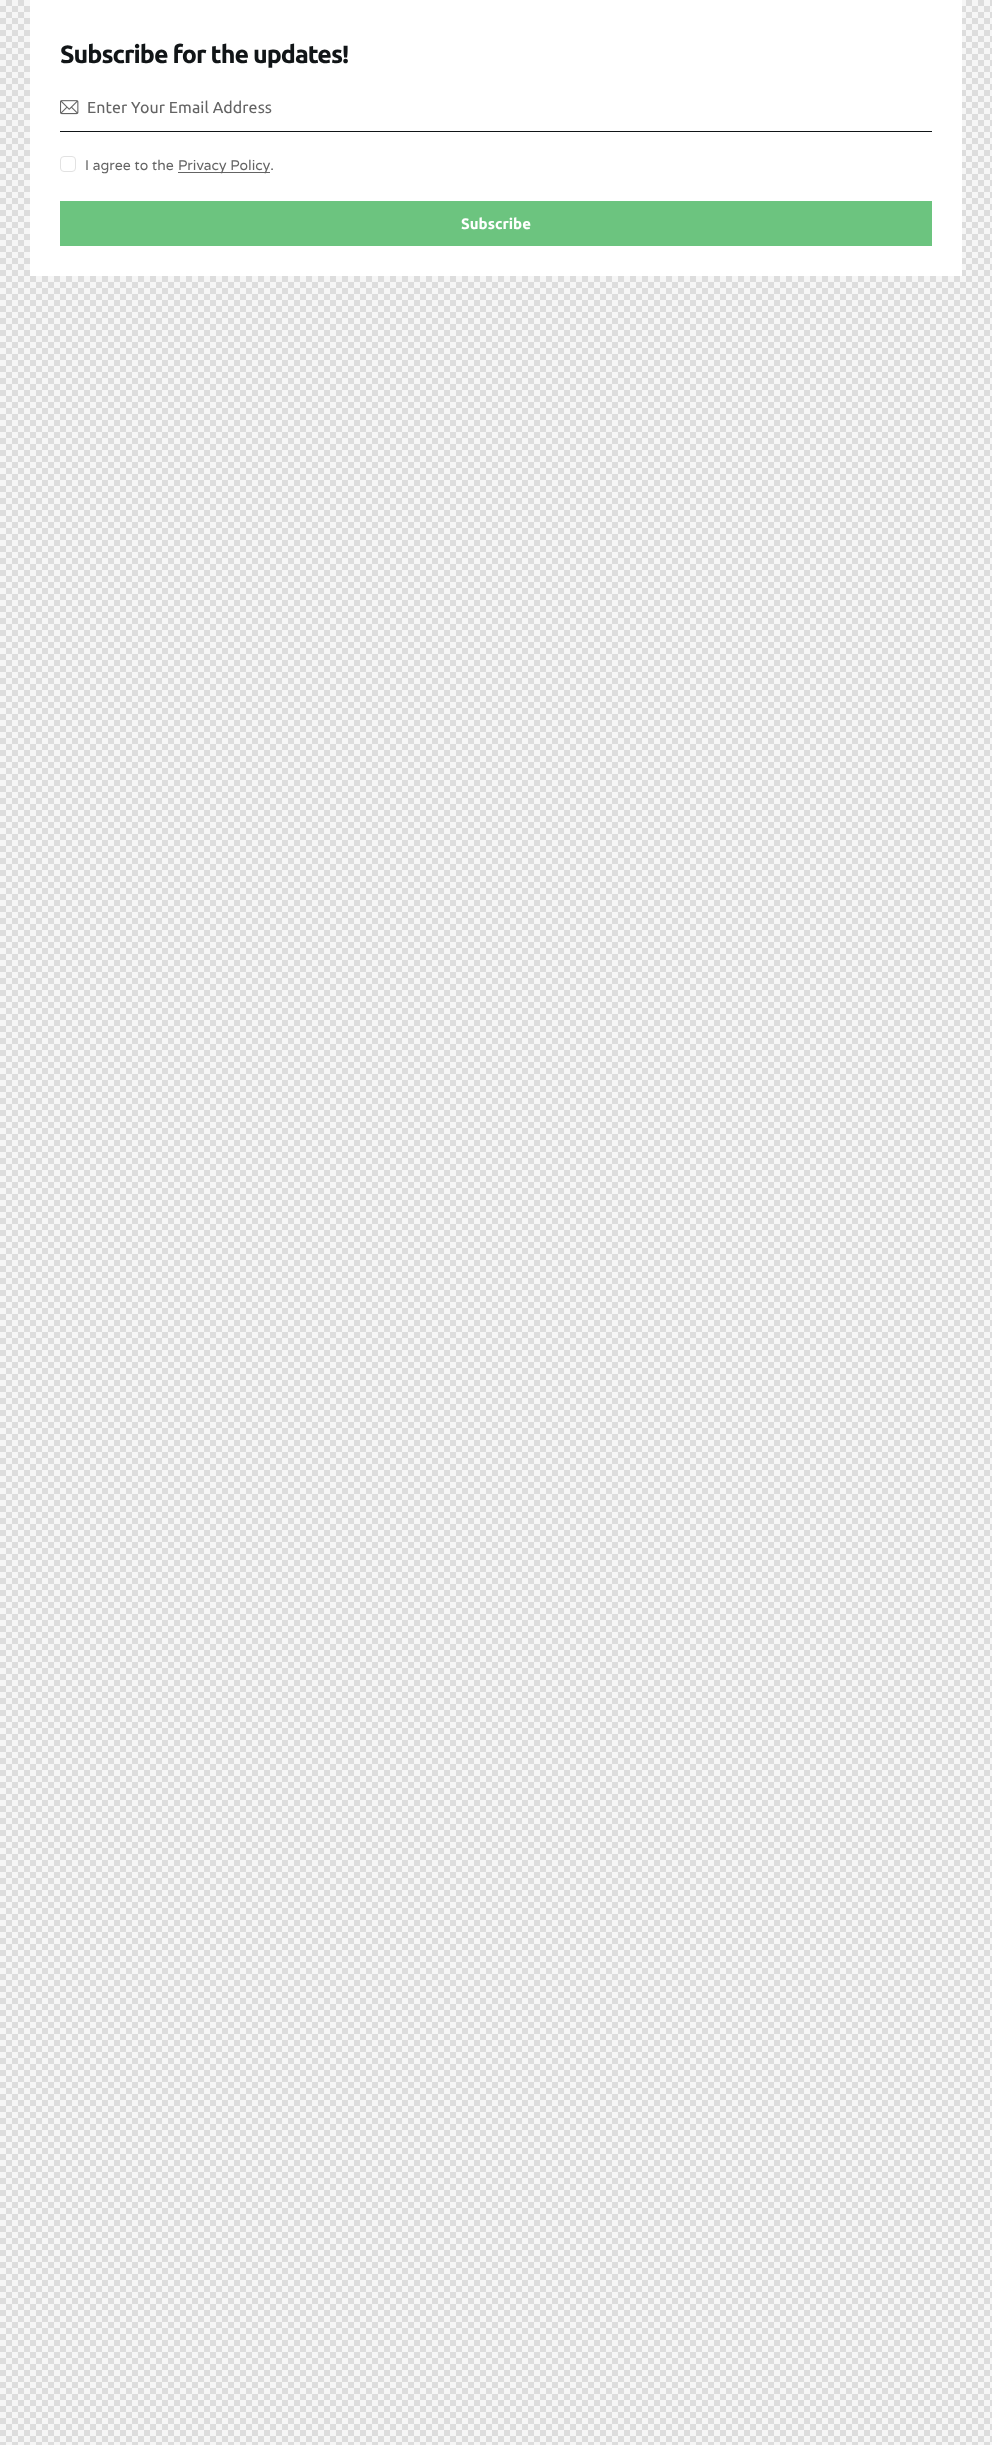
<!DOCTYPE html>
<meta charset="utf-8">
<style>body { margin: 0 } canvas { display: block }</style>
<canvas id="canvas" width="992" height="2445"></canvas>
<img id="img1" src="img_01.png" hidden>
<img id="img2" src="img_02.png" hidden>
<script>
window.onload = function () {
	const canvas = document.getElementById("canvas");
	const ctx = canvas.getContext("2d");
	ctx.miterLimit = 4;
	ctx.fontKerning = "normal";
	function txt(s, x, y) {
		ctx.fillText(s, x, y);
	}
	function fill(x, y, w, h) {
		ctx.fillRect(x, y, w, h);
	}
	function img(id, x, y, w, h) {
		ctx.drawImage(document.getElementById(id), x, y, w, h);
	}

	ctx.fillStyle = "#FFFFFF";
	fill(0, 0, 992, 2445);
	img("img1", 0, 0, 992, 2445);
	fill(30, 0, 932, 276);
	img("img2", 60, 100, 19, 15);
	ctx.fillStyle = "#111517";
	fill(60, 131, 872, 1);
	ctx.beginPath();
	ctx.roundRect(60.5, 156.5, 15, 15, 3.5);
	ctx.strokeStyle = "#E2E2E2";
	ctx.stroke();
	ctx.fillStyle = "#646464";
	fill(178, 172, 92, 1);
	ctx.fillStyle = "#6CC47F";
	fill(60, 201, 872, 45);
	ctx.letterSpacing = "-1px";
	ctx.font = "bold 25px Ubuntu";
	ctx.fillStyle = "#111517";
	txt("Subscribe for the updates!", 60, 63);
	ctx.letterSpacing = "0.1px";
	ctx.font = "16px Ubuntu";
	ctx.fillStyle = "#646464";
	txt("Enter Your Email Address", 87, 113);
	ctx.letterSpacing = "0px";
	ctx.font = "14px Varela";
	txt("I agree to the", 85, 170);
	txt("Privacy Policy.", 178, 170);
	ctx.font = "bold 15px Ubuntu";
	ctx.fillStyle = "#FFFFFF";
	txt("Subscribe", 461, 229);
};
</script>
